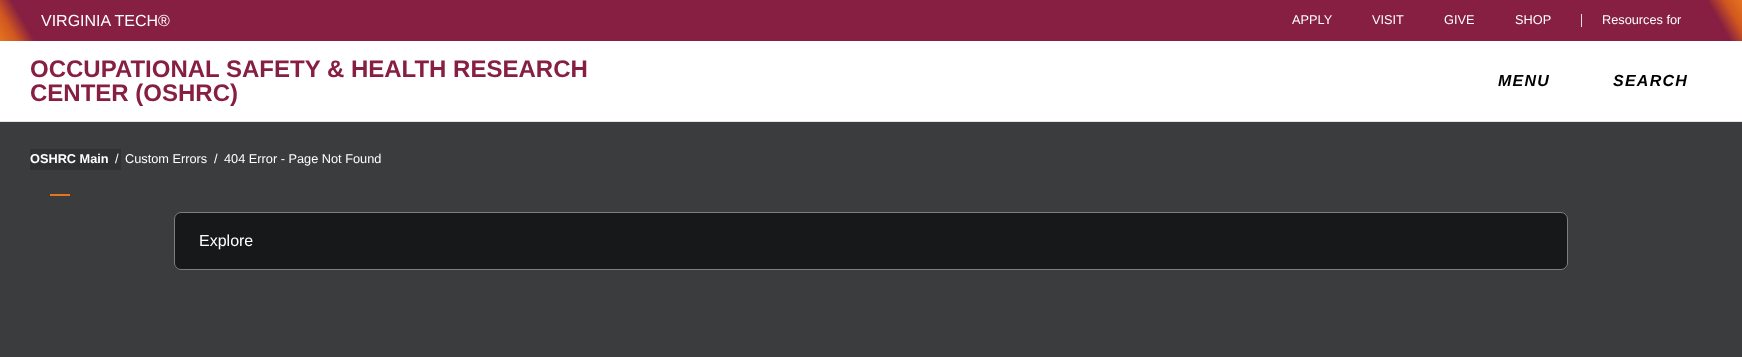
<!DOCTYPE html>
<meta charset="utf-8">
<style>body { margin: 0 } canvas { display: block }</style>
<canvas id="canvas" width="1742" height="357"></canvas>
<script>
window.onload = function () {
	const canvas = document.getElementById("canvas");
	const ctx = canvas.getContext("2d");
	ctx.miterLimit = 4;
	ctx.fontKerning = "normal";
	function txt(s, x, y) {
		ctx.fillText(s, x, y);
	}
	function fill(x, y, w, h) {
		ctx.fillRect(x, y, w, h);
	}
	function round(x, y, w, h, r) {
		ctx.beginPath();
		ctx.roundRect(x, y, w, h, r);
		ctx.fill();
	}
	let gradient;

	ctx.fillStyle = "#FFFFFF";
	fill(0, 0, 1742, 357);
	ctx.fillStyle = "#E5E1E6";
	fill(0, 121, 1742, 1);
	gradient = ctx.createLinearGradient(209, 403, 1533, -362);
	gradient.addColorStop(0, "#E5751F");
	gradient.addColorStop(0.01, "#D1571F");
	gradient.addColorStop(0.02, "#861F41");
	gradient.addColorStop(0.98, "#861F41");
	gradient.addColorStop(0.99, "#D1571F");
	gradient.addColorStop(1, "#E5751F");
	ctx.fillStyle = gradient;
	fill(0, 0, 1742, 41);
	ctx.fillStyle = "#E5E1E6";
	fill(1581, 14, 1, 13);
	ctx.fillStyle = "#3B3C3E";
	fill(0, 122, 1742, 235);
	ctx.fillStyle = "#303133";
	fill(30, 149, 91, 21);
	ctx.fillStyle = "#E5751F";
	fill(50, 194, 20, 2);
	ctx.fillStyle = "#171819";
	round(174, 212, 1394, 58, 7);
	ctx.beginPath();
	ctx.roundRect(174.5, 212.5, 1393, 57, 6.5);
	ctx.strokeStyle = "rgba(229, 225, 230, 0.5)";
	ctx.stroke();
	ctx.font = "16px Liberation Sans";
	ctx.fillStyle = "#FFFFFF";
	txt("VIRGINIA TECH®", 41, 26);
	ctx.font = "12.75px Liberation Sans";
	txt("APPLY", 1292, 24);
	txt("VISIT", 1372, 24);
	txt("GIVE", 1444, 24);
	txt("SHOP", 1515, 24);
	txt("Resources for", 1602, 24);
	ctx.font = "bold 24px Liberation Sans";
	ctx.fillStyle = "#861F41";
	txt("OCCUPATIONAL SAFETY & HEALTH RESEARCH", 30, 77);
	txt("CENTER (OSHRC)", 30, 101);
	ctx.letterSpacing = "1.25px";
	ctx.font = "italic bold 16px Liberation Sans";
	ctx.fillStyle = "#000000";
	txt("MENU", 1498, 86);
	txt("SEARCH", 1613, 86);
	ctx.letterSpacing = "0px";
	ctx.font = "bold 12.75px Liberation Sans";
	ctx.fillStyle = "#FFFFFF";
	txt("OSHRC Main", 30, 163);
	ctx.font = "12.75px Liberation Sans";
	txt("/", 115, 163);
	txt("Custom Errors", 125, 163);
	txt("/", 214, 163);
	txt("404 Error - Page Not Found", 224, 163);
	ctx.font = "16px Liberation Sans";
	txt("Explore", 199, 246);
};
</script>
